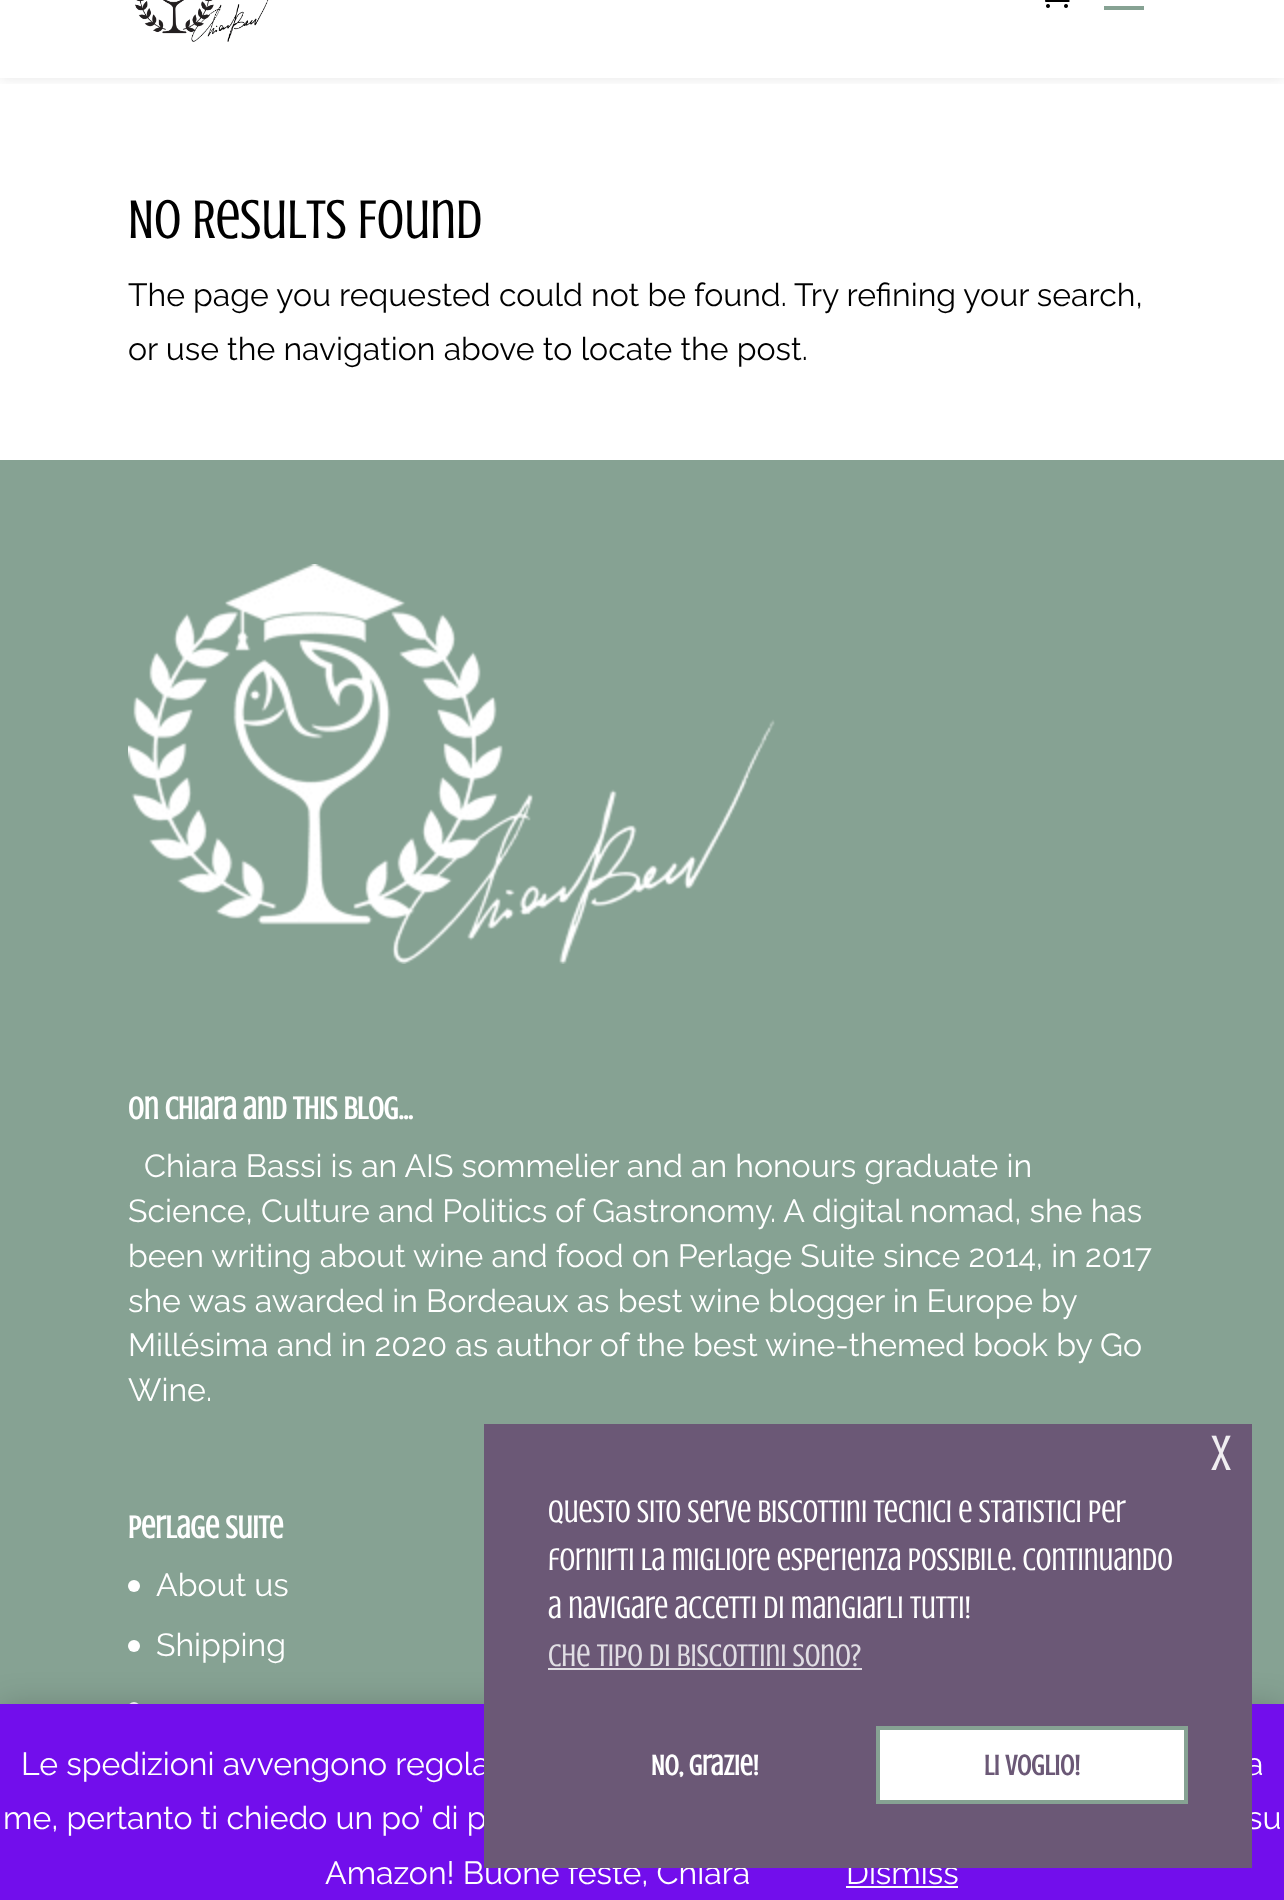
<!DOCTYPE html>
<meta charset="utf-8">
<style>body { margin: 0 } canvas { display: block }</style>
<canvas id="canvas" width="1284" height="1900"></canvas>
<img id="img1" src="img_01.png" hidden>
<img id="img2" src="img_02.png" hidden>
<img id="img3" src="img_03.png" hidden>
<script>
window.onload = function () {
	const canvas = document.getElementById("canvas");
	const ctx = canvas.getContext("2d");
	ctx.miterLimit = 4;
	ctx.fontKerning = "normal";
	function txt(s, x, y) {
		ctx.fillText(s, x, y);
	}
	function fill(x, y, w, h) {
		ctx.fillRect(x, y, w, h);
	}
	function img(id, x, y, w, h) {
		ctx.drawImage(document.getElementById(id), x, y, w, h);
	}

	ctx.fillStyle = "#FFFFFF";
	fill(0, 0, 1284, 1900);
	ctx.save();
	ctx.beginPath();
	ctx.rect(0, 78, 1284, 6);
	ctx.clip();
	ctx.fillStyle = "rgba(0, 0, 0, 0.1)";
	ctx.filter = "blur(7px)";
	ctx.beginPath();
	ctx.rect(0, -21, 1284, 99);
	ctx.fill();
	ctx.filter = "none";
	ctx.restore();
	img("img1", 135, 0, 134, 42);
	img("img2", 1045, 0, 25, 8);
	ctx.fillStyle = "#86A293";
	fill(1104, 6, 40, 4);
	fill(0, 460, 1284, 1244);
	img("img3", 128, 564, 647, 400);
	ctx.fillStyle = "#FFFFFF";
	ctx.beginPath();
	ctx.arc(134, 1586, 6, 0, Math.PI * 2);
	ctx.fill();
	ctx.beginPath();
	ctx.arc(134, 1646, 6, 0, Math.PI * 2);
	ctx.fill();
	ctx.beginPath();
	ctx.arc(134, 1708, 6, 0, Math.PI * 2);
	ctx.fill();
	ctx.fillStyle = "rgba(0, 0, 0, 0.2)";
	ctx.filter = "blur(16px)";
	ctx.beginPath();
	ctx.rect(0, 1706, 1284, 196);
	ctx.fill();
	ctx.filter = "none";
	ctx.fillStyle = "#720EEC";
	fill(0, 1704, 1284, 196);
	ctx.fillStyle = "#FCFBFE";
	fill(846, 1886, 112, 2);
	ctx.font = "56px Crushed";
	ctx.fillStyle = "#000000";
	txt("No Results Found", 128, 238);
	ctx.font = "100 32px Raleway";
	txt("The page you requested could not be found. Try refining your search,", 128, 306);
	txt("or use the navigation above to locate the post.", 128, 360);
	ctx.font = "bold 32px Crushed";
	ctx.fillStyle = "#FFFFFF";
	txt("On Chiara and this blog...", 128, 1119);
	ctx.font = "100 32px Raleway";
	txt("Chiara Bassi is an AIS sommelier and an honours graduate in", 144, 1177);
	txt("Science, Culture and Politics of Gastronomy. A digital nomad, she has", 128, 1222);
	txt("been writing about wine and food on Perlage Suite since 2014, in 2017", 128, 1267);
	txt("she was awarded in Bordeaux as best wine blogger in Europe by", 128, 1312);
	txt("Millésima and in 2020 as author of the best wine-themed book by Go", 128, 1356);
	txt("Wine.", 128, 1401);
	ctx.font = "bold 32px Crushed";
	txt("Perlage Suite", 128, 1538);
	ctx.font = "100 32px Raleway";
	txt("About us", 156, 1596);
	txt("Shipping", 156, 1656);
	txt("Le spedizioni avvengono regola", 21, 1775);
	txt("a", 1246, 1775);
	txt("me, pertanto ti chiedo un po’ di p", 3, 1829);
	txt("su", 1247, 1829);
	txt("Amazon! Buone feste, Chiara", 325, 1884);
	txt("Dismiss", 846, 1884);
	ctx.fillStyle = "#6B5876";
	fill(484, 1424, 768, 444);
	ctx.font = "51px Crushed";
	ctx.fillStyle = "#F0EEF1";
	txt("x", 1211, 1470);
	ctx.font = "32px Crushed";
	ctx.fillStyle = "#E1DEE4";
	txt("Che tipo di biscottini sono?", 548, 1666);
	fill(548, 1668, 314, 2);
	ctx.fillStyle = "#FFFFFF";
	ctx.beginPath();
	ctx.rect(878, 1728, 308, 74);
	ctx.fill();
	ctx.strokeStyle = "#86A293";
	ctx.lineWidth = 4;
	ctx.stroke();
	ctx.font = "bold 29px Crushed";
	ctx.fillStyle = "#6B5876";
	txt("Li voglio!", 984, 1775);
	ctx.fillStyle = "#FFFFFF";
	txt("No, grazie!", 651, 1775);
	ctx.font = "32px Crushed";
	txt("a navigare accetti di mangiarli tutti!", 548, 1618);
	txt("fornirti la migliore esperienza possibile. Continuando", 548, 1570);
	txt("Questo sito serve biscottini tecnici e statistici per", 548, 1522);
};
</script>
